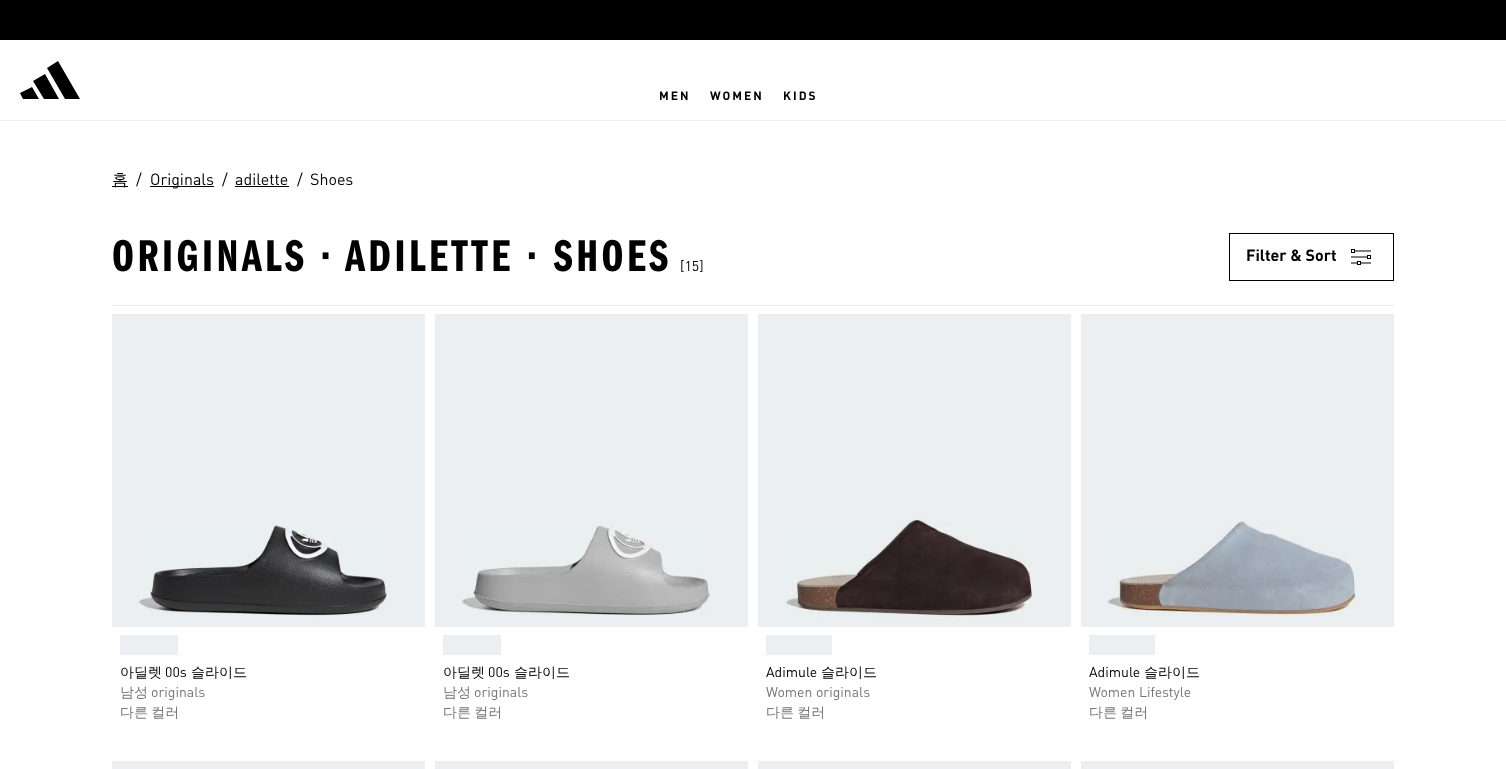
<!DOCTYPE html>
<meta charset="utf-8">
<style>body { margin: 0 } canvas { display: block }</style>
<canvas id="canvas" width="1506" height="769"></canvas>
<img id="img1" src="img_01.png" hidden>
<img id="img2" src="img_02.png" hidden>
<img id="img3" src="img_03.png" hidden>
<img id="img4" src="img_04.png" hidden>
<img id="img5" src="img_05.png" hidden>
<script>
window.onload = function () {
	const canvas = document.getElementById("canvas");
	const ctx = canvas.getContext("2d");
	ctx.miterLimit = 4;
	ctx.fontKerning = "normal";
	function txt(s, x, y) {
		ctx.fillText(s, x, y);
	}
	function fill(x, y, w, h) {
		ctx.fillRect(x, y, w, h);
	}
	function img(id, x, y, w, h) {
		ctx.drawImage(document.getElementById(id), x, y, w, h);
	}

	ctx.fillStyle = "#FFFFFF";
	fill(0, 0, 1506, 769);
	ctx.fillStyle = "#000000";
	fill(0, 0, 1506, 40);
	ctx.fillStyle = "#ECEFF1";
	fill(0, 120, 1506, 1);
	ctx.fillStyle = "#000000";
	ctx.beginPath();
	ctx.moveTo(80, 99);
	ctx.lineTo(58, 61);
	ctx.lineTo(47, 68);
	ctx.lineTo(65, 99);
	ctx.closePath();
	ctx.moveTo(59, 99);
	ctx.lineTo(45, 74);
	ctx.lineTo(33, 81);
	ctx.lineTo(44, 99);
	ctx.closePath();
	ctx.moveTo(32, 87);
	ctx.lineTo(39, 99);
	ctx.lineTo(23, 99);
	ctx.lineTo(20, 93);
	ctx.closePath();
	ctx.fill("evenodd");
	fill(112, 186, 16, 1);
	fill(150, 186, 64, 1);
	fill(235, 186, 54, 1);
	ctx.strokeStyle = "#000000";
	ctx.strokeRect(1229.5, 233.5, 164, 47);
	img("img1", 1351, 249, 20, 16);
	ctx.fillStyle = "#ECEFF1";
	fill(112, 305, 1282, 1);
	fill(112, 314, 313, 313);
	img("img2", 138, 523, 249, 94);
	fill(120, 635, 58, 20);
	fill(435, 314, 313, 313);
	img("img3", 462, 523, 248, 93);
	fill(443, 635, 58, 20);
	fill(758, 314, 313, 313);
	img("img4", 785, 518, 248, 102);
	fill(766, 635, 66, 20);
	fill(1081, 314, 313, 313);
	img("img5", 1107, 520, 249, 96);
	fill(1089, 635, 66, 20);
	fill(112, 761, 313, 8);
	fill(435, 761, 313, 8);
	fill(758, 761, 313, 8);
	fill(1081, 761, 313, 8);
	ctx.letterSpacing = "2px";
	ctx.font = "bold 12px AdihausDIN";
	ctx.fillStyle = "#000000";
	txt("MEN", 659, 100);
	txt("WOMEN", 710, 100);
	txt("KIDS", 783, 100);
	ctx.letterSpacing = "0px";
	ctx.font = "500 16px WenQuanYi Zen Hei";
	txt("홈", 112, 185);
	ctx.font = "16px AdihausDIN";
	txt("/", 136, 185);
	txt("Originals", 150, 185);
	txt("/", 222, 185);
	txt("adilette", 235, 185);
	txt("/", 297, 185);
	txt("Shoes", 310, 185);
	ctx.letterSpacing = "3.5px";
	ctx.font = "bold 46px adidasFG";
	txt("ORIGINALS · ADILETTE · SHOES", 112, 271);
	ctx.letterSpacing = "0px";
	ctx.font = "14px AdihausDIN";
	txt("[15]", 680, 271);
	ctx.font = "bold 16px AdihausDIN";
	txt("Filter & Sort", 1246, 261);
	ctx.font = "500 14px WenQuanYi Zen Hei";
	txt("아딜렛", 120, 677);
	ctx.font = "14px AdihausDIN";
	txt("00s", 165, 677);
	ctx.font = "500 14px WenQuanYi Zen Hei";
	txt("슬라이드", 191, 677);
	ctx.fillStyle = "#767677";
	txt("남성", 120, 697);
	ctx.font = "14px AdihausDIN";
	txt("originals", 151, 697);
	ctx.wordSpacing = "-1px";
	ctx.font = "500 14px WenQuanYi Zen Hei";
	txt("다른 컬러", 120, 717);
	ctx.wordSpacing = "0px";
	ctx.fillStyle = "#000000";
	txt("아딜렛", 443, 677);
	ctx.font = "14px AdihausDIN";
	txt("00s", 488, 677);
	ctx.font = "500 14px WenQuanYi Zen Hei";
	txt("슬라이드", 514, 677);
	ctx.fillStyle = "#767677";
	txt("남성", 443, 697);
	ctx.font = "14px AdihausDIN";
	txt("originals", 474, 697);
	ctx.wordSpacing = "-1px";
	ctx.font = "500 14px WenQuanYi Zen Hei";
	txt("다른 컬러", 443, 717);
	ctx.wordSpacing = "0px";
	ctx.font = "14px AdihausDIN";
	ctx.fillStyle = "#000000";
	txt("Adimule", 766, 677);
	ctx.font = "500 14px WenQuanYi Zen Hei";
	txt("슬라이드", 821, 677);
	ctx.font = "14px AdihausDIN";
	ctx.fillStyle = "#767677";
	txt("Women originals", 766, 697);
	ctx.wordSpacing = "-1px";
	ctx.font = "500 14px WenQuanYi Zen Hei";
	txt("다른 컬러", 766, 717);
	ctx.wordSpacing = "0px";
	ctx.font = "14px AdihausDIN";
	ctx.fillStyle = "#000000";
	txt("Adimule", 1089, 677);
	ctx.font = "500 14px WenQuanYi Zen Hei";
	txt("슬라이드", 1144, 677);
	ctx.font = "14px AdihausDIN";
	ctx.fillStyle = "#767677";
	txt("Women Lifestyle", 1089, 697);
	ctx.wordSpacing = "-1px";
	ctx.font = "500 14px WenQuanYi Zen Hei";
	txt("다른 컬러", 1089, 717);
};
</script>
